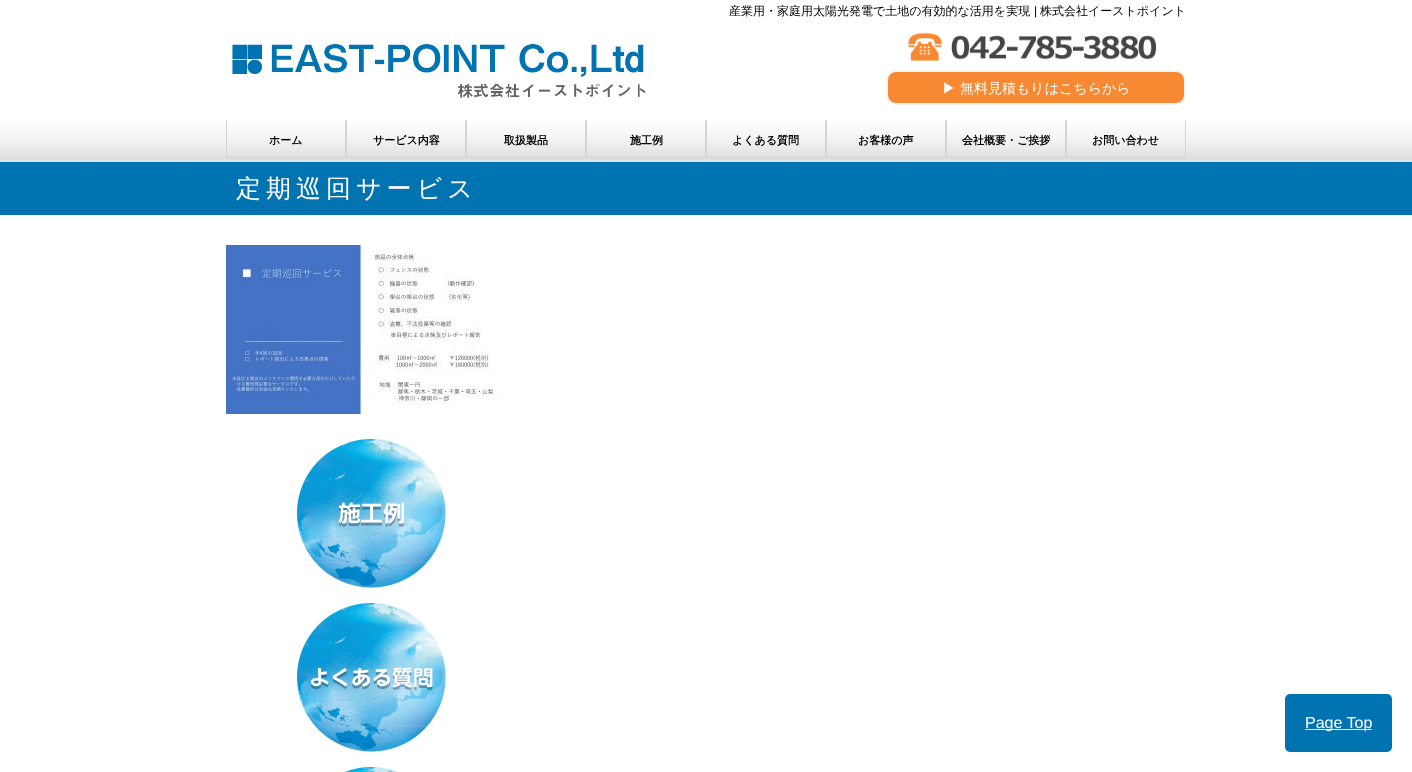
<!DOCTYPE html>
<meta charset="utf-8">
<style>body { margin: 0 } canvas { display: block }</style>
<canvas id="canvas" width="1412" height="772"></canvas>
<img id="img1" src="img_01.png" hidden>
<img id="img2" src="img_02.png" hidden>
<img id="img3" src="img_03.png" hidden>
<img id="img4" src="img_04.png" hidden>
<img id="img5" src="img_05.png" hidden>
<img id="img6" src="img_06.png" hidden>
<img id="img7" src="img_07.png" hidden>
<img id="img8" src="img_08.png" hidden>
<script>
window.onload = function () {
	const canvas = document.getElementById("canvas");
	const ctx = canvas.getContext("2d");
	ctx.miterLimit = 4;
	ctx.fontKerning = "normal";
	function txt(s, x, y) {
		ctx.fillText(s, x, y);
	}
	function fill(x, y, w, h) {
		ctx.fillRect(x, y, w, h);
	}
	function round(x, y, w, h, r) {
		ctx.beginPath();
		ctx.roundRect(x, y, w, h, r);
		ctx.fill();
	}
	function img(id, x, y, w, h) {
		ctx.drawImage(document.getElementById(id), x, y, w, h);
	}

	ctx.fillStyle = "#FFFFFF";
	fill(0, 0, 1412, 772);
	img("img1", 232, 44, 414, 54);
	img("img2", 908, 32, 248, 29);
	ctx.fillStyle = "#F78933";
	ctx.beginPath();
	ctx.roundRect(887, 71, 298, 33, 9);
	ctx.fill();
	ctx.strokeStyle = "#F5F5F5";
	ctx.lineWidth = 2;
	ctx.stroke();
	img("img3", 0, 120, 1412, 42);
	ctx.fillStyle = "#DDDDDD";
	fill(227, 156, 118, 1);
	img("img4", 227, 120, 118, 36);
	ctx.fillStyle = "#D5D5D5";
	fill(345, 120, 1, 38);
	fill(226, 157, 120, 1);
	fill(226, 120, 1, 38);
	ctx.fillStyle = "#DDDDDD";
	fill(347, 156, 118, 1);
	img("img4", 347, 120, 118, 36);
	ctx.fillStyle = "#D5D5D5";
	fill(465, 120, 1, 38);
	fill(346, 157, 120, 1);
	fill(346, 120, 1, 38);
	ctx.fillStyle = "#DDDDDD";
	fill(467, 156, 118, 1);
	img("img4", 467, 120, 118, 36);
	ctx.fillStyle = "#D5D5D5";
	fill(585, 120, 1, 38);
	fill(466, 157, 120, 1);
	fill(466, 120, 1, 38);
	ctx.fillStyle = "#DDDDDD";
	fill(587, 156, 118, 1);
	img("img4", 587, 120, 118, 36);
	ctx.fillStyle = "#D5D5D5";
	fill(705, 120, 1, 38);
	fill(586, 157, 120, 1);
	fill(586, 120, 1, 38);
	ctx.fillStyle = "#DDDDDD";
	fill(707, 156, 118, 1);
	img("img4", 707, 120, 118, 36);
	ctx.fillStyle = "#D5D5D5";
	fill(825, 120, 1, 38);
	fill(706, 157, 120, 1);
	fill(706, 120, 1, 38);
	ctx.fillStyle = "#DDDDDD";
	fill(827, 156, 118, 1);
	img("img4", 827, 120, 118, 36);
	ctx.fillStyle = "#D5D5D5";
	fill(945, 120, 1, 38);
	fill(826, 157, 120, 1);
	fill(826, 120, 1, 38);
	ctx.fillStyle = "#DDDDDD";
	fill(947, 156, 118, 1);
	img("img4", 947, 120, 118, 36);
	ctx.fillStyle = "#D5D5D5";
	fill(1065, 120, 1, 38);
	fill(946, 157, 120, 1);
	fill(946, 120, 1, 38);
	ctx.fillStyle = "#DDDDDD";
	fill(1067, 156, 118, 1);
	img("img4", 1067, 120, 118, 36);
	ctx.fillStyle = "#D5D5D5";
	fill(1185, 120, 1, 38);
	fill(1066, 157, 120, 1);
	fill(1066, 120, 1, 38);
	ctx.fillStyle = "#0173B1";
	fill(0, 162, 1412, 53);
	img("img5", 226, 245, 272, 169);
	img("img6", 297, 439, 149, 149);
	img("img7", 297, 603, 149, 149);
	img("img8", 344, 767, 54, 5);
	round(1285, 694, 107, 58, 5);
	ctx.fillStyle = "#FFFFFF";
	fill(1305, 729, 67, 1);
	ctx.font = "500 12px WenQuanYi Zen Hei";
	ctx.fillStyle = "#000000";
	txt("産業用・家庭用太陽光発電で土地の有効的な活用を実現", 729, 15);
	ctx.font = "12px Liberation Sans";
	txt("|", 1034, 15);
	ctx.font = "500 12px WenQuanYi Zen Hei";
	txt("株式会社イーストポイント", 1040, 15);
	ctx.font = "500 14px WenQuanYi Zen Hei";
	ctx.fillStyle = "#FFFFFF";
	txt("▶︎", 942, 93);
	txt("無料見積もりはこちらから", 960, 93);
	ctx.font = "bold 11px WenQuanYi Zen Hei";
	ctx.fillStyle = "#000000";
	txt("ホーム", 269, 144);
	txt("サービス内容", 373, 144);
	txt("取扱製品", 504, 144);
	txt("施工例", 630, 144);
	txt("よくある質問", 732, 144);
	txt("お客様の声", 858, 144);
	txt("会社概要・ご挨拶", 962, 144);
	txt("お問い合わせ", 1092, 144);
	ctx.letterSpacing = "5px";
	ctx.font = "500 25px WenQuanYi Zen Hei";
	ctx.fillStyle = "#FFFFFF";
	txt("定期巡回サービス", 236, 197);
	ctx.letterSpacing = "0px";
	ctx.font = "16px Liberation Sans";
	txt("Page Top", 1305, 728);
};
</script>
